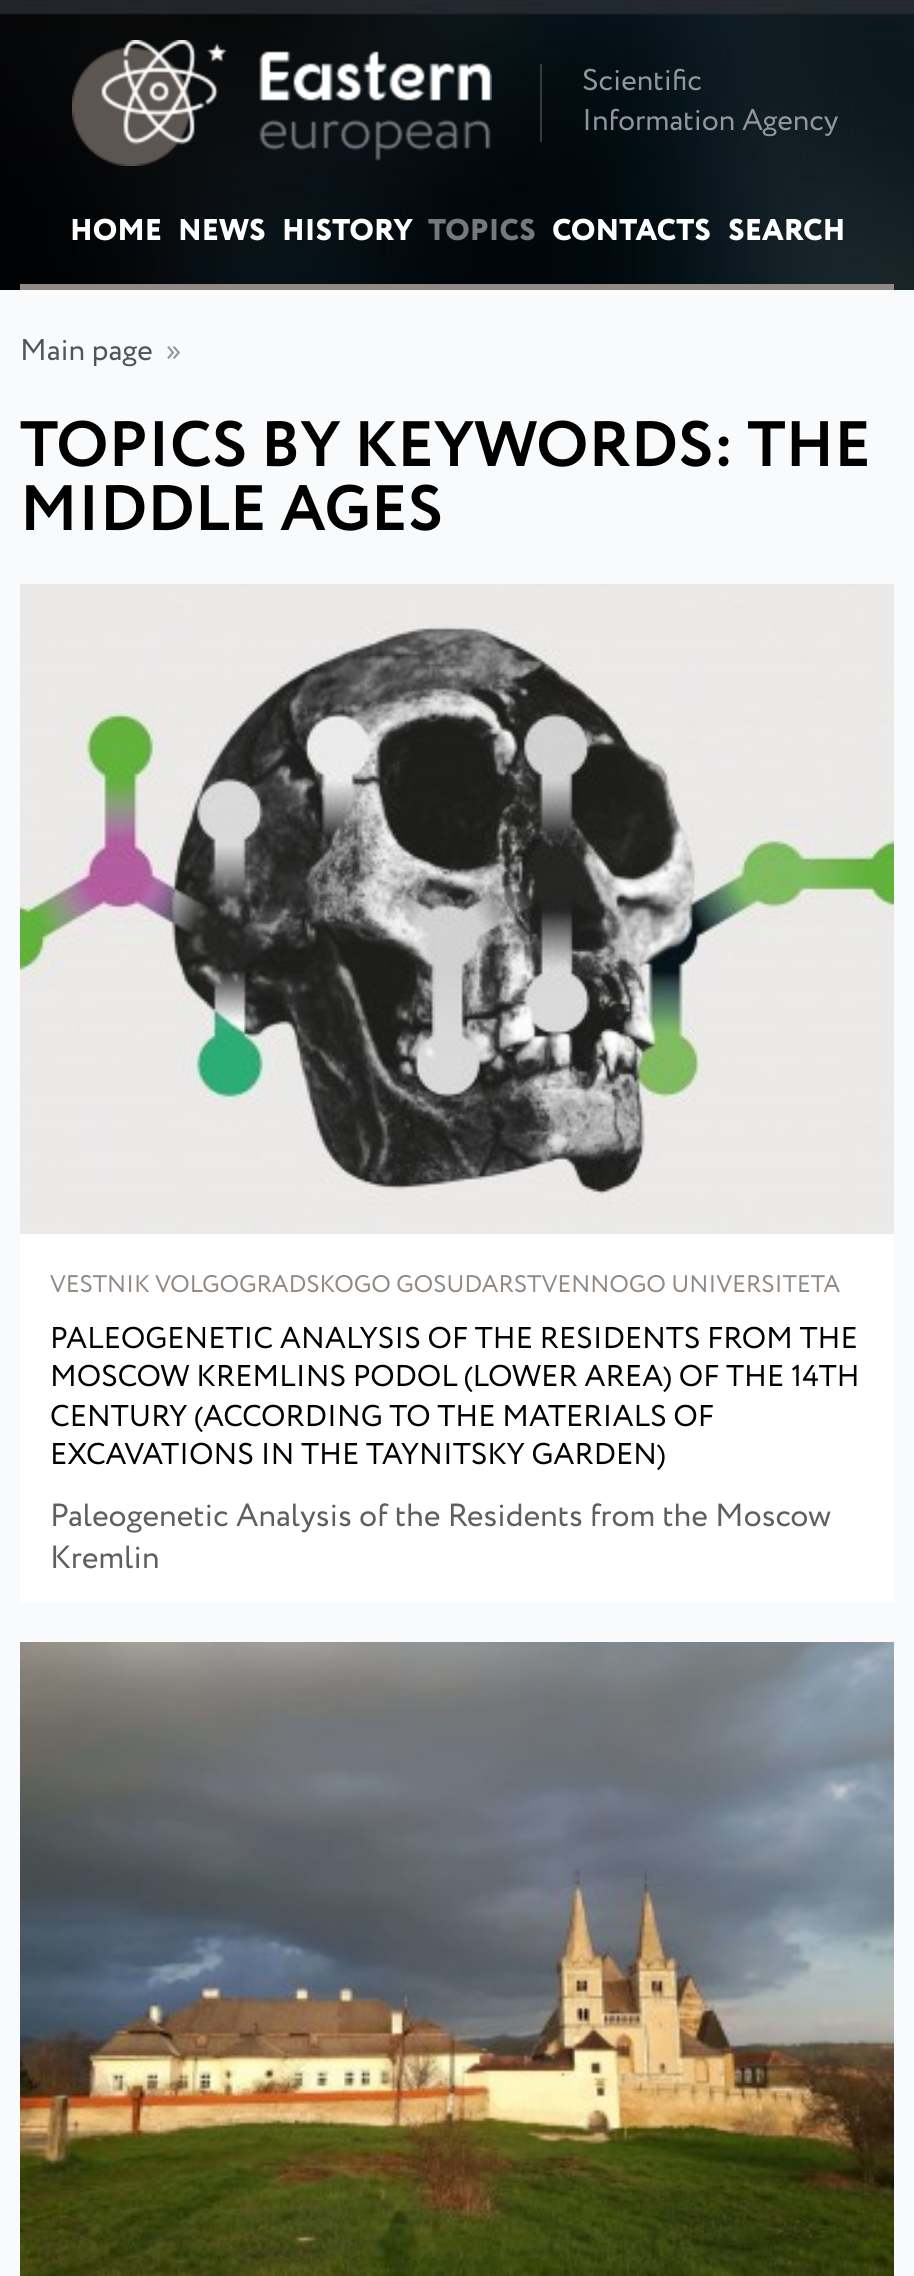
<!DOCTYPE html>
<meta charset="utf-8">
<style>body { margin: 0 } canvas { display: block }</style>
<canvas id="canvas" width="914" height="2276"></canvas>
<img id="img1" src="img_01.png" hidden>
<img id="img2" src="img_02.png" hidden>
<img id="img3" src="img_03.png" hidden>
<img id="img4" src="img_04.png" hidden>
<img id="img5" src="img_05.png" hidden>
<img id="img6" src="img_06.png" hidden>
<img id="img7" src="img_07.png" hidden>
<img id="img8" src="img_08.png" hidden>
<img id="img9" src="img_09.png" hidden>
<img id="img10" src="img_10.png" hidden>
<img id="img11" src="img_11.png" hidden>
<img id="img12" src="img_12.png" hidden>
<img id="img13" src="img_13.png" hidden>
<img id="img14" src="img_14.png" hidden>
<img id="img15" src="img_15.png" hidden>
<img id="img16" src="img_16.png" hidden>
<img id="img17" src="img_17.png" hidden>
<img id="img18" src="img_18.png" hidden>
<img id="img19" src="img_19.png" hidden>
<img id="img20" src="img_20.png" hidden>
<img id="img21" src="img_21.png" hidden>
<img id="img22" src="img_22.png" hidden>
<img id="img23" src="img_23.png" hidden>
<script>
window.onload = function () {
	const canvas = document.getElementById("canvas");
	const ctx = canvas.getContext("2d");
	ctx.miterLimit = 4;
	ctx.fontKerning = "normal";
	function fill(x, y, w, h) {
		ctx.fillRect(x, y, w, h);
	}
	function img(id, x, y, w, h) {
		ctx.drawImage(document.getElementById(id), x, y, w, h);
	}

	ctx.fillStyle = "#F8FAFB";
	fill(0, 0, 914, 2276);
	img("img1", 0, 0, 914, 290);
	img("img2", 72, 40, 420, 126);
	ctx.fillStyle = "#393939";
	fill(540, 64, 2, 78);
	img("img3", 583, 68, 118, 23);
	img("img4", 585, 108, 253, 29);
	img("img5", 72, 218, 89, 23);
	img("img6", 180, 218, 85, 23);
	img("img7", 284, 218, 129, 23);
	img("img8", 428, 218, 107, 23);
	img("img9", 553, 218, 157, 23);
	img("img10", 729, 218, 114, 23);
	ctx.fillStyle = "#918984";
	fill(20, 284, 874, 6);
	img("img11", 23, 339, 129, 28);
	img("img12", 167, 346, 13, 13);
	img("img13", 20, 420, 847, 47);
	img("img14", 26, 484, 415, 47);
	ctx.fillStyle = "#FFFFFF";
	fill(20, 1234, 874, 368);
	img("img15", 20, 584, 874, 650);
	img("img16", 50, 1275, 790, 18);
	img("img17", 53, 1326, 803, 23);
	img("img18", 53, 1364, 804, 29);
	img("img19", 51, 1404, 662, 29);
	img("img20", 53, 1442, 612, 29);
	img("img21", 53, 1503, 778, 30);
	img("img22", 53, 1545, 105, 24);
	img("img23", 20, 1642, 874, 634);
};
</script>
